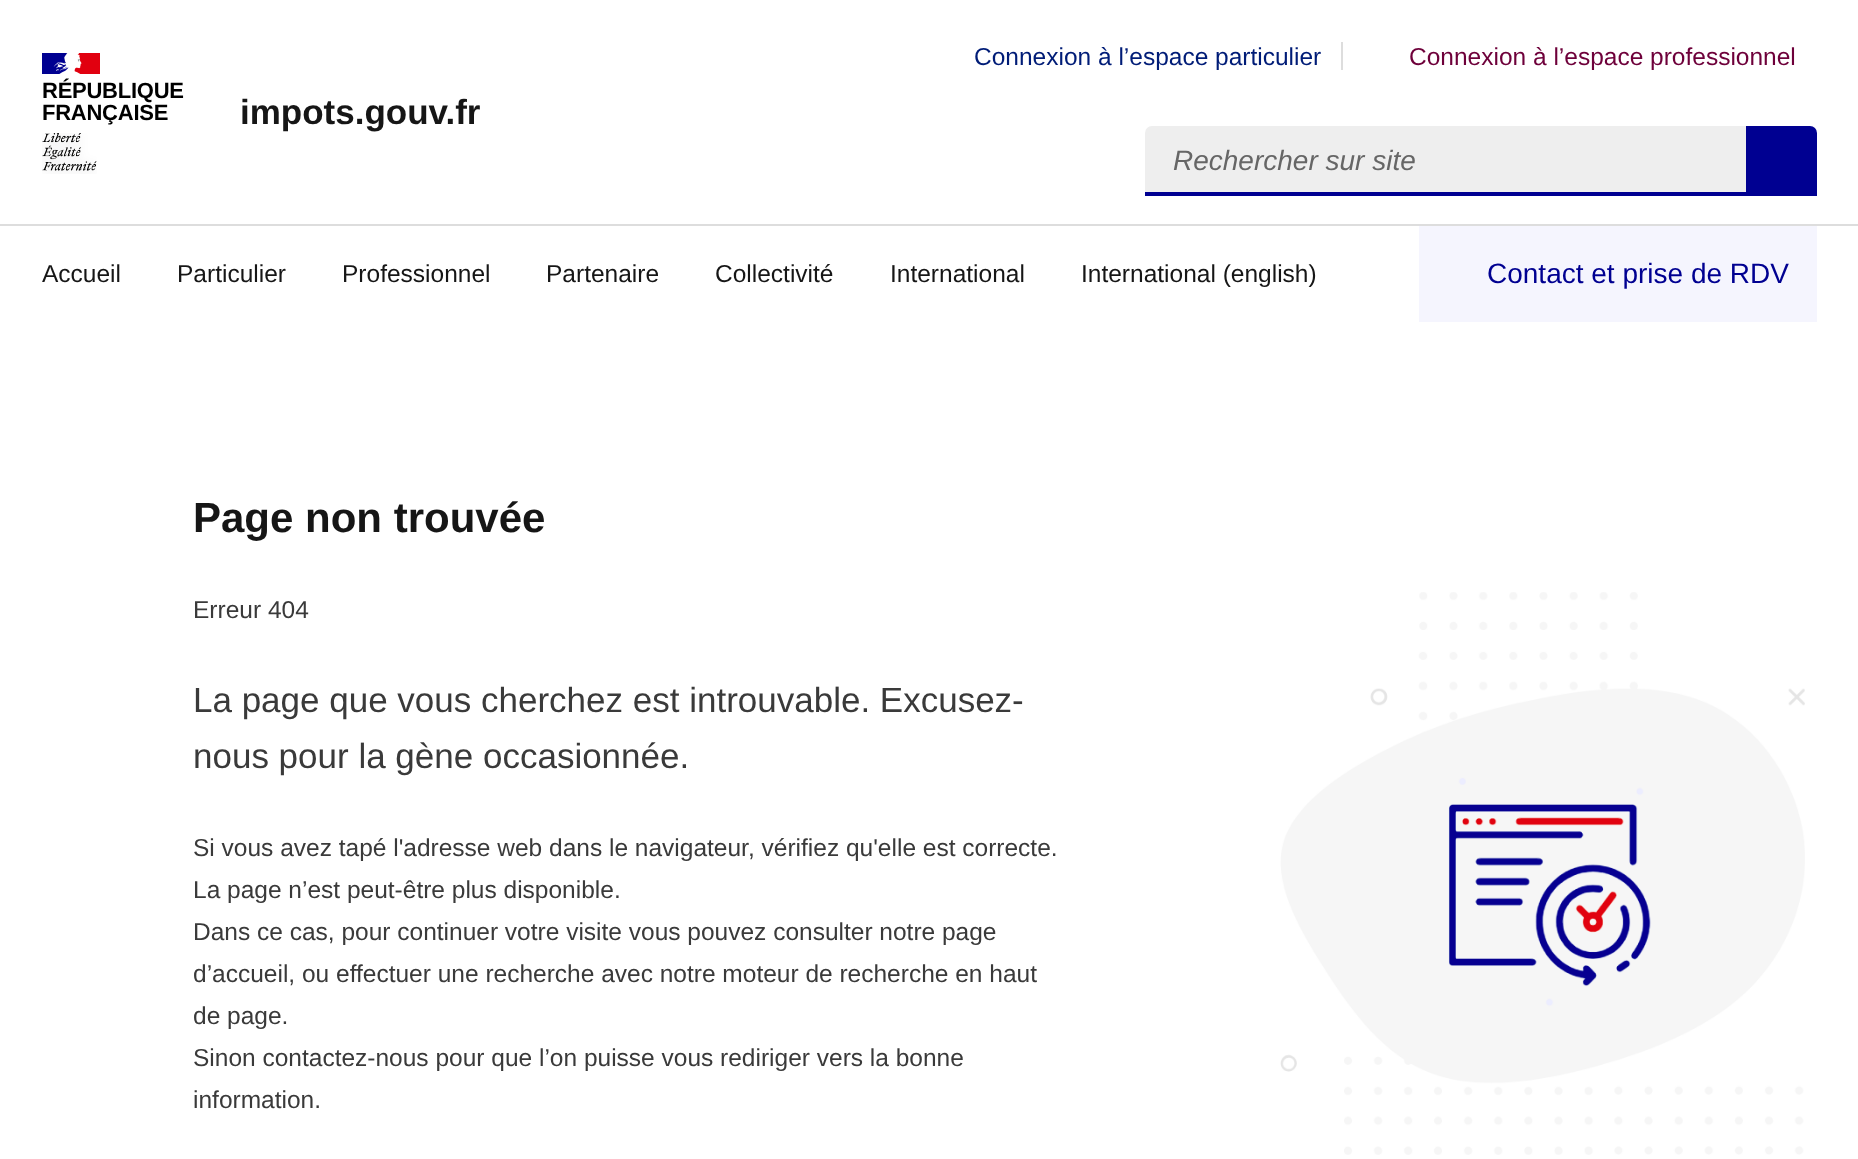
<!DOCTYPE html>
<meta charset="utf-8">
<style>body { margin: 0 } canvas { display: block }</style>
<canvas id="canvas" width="1858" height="1159"></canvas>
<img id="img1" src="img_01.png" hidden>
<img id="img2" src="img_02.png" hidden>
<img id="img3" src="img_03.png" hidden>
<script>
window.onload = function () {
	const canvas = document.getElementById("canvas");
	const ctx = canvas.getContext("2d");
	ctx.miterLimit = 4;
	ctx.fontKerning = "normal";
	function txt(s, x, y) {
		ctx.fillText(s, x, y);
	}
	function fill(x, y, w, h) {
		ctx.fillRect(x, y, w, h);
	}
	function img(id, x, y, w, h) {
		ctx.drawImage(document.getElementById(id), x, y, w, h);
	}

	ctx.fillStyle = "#FFFFFF";
	fill(0, 0, 1858, 1159);
	ctx.fillStyle = "#000091";
	fill(42, 53, 27, 21);
	ctx.fillStyle = "#E1000F";
	fill(74, 53, 26, 21);
	img("img1", 53, 53, 29, 21);
	img("img2", 42, 133, 55, 41);
	ctx.fillStyle = "#DDDDDD";
	fill(1341, 42, 2, 28);
	ctx.fillStyle = "#EEEEEE";
	ctx.beginPath();
	ctx.roundRect(1145, 126, 602, 70, [7, 0, 0, 0]);
	ctx.fill();
	ctx.fillStyle = "#000091";
	ctx.beginPath();
	ctx.moveTo(1145, 192);
	ctx.lineTo(1145, 196);
	ctx.lineTo(1747, 196);
	ctx.lineTo(1747, 126);
	ctx.lineTo(1746, 126);
	ctx.lineTo(1746, 192);
	ctx.closePath();
	ctx.fill();
	ctx.beginPath();
	ctx.roundRect(1747, 126, 70, 70, [0, 7, 0, 0]);
	ctx.fill();
	ctx.fillStyle = "#DDDDDD";
	fill(0, 224, 1858, 2);
	ctx.fillStyle = "#F5F5FE";
	fill(1419, 226, 398, 96);
	img("img3", 1280, 592, 525, 563);
	ctx.letterSpacing = "-0.25px";
	ctx.font = "bold 22px Liberation Sans";
	ctx.fillStyle = "#000000";
	txt("RÉPUBLIQUE", 42, 98);
	txt("FRANÇAISE", 42, 120);
	ctx.letterSpacing = "0px";
	ctx.font = "bold 35px Liberation Sans";
	ctx.fillStyle = "#161616";
	txt("impots.gouv.fr", 240, 124);
	ctx.font = "24.5px Liberation Sans";
	ctx.fillStyle = "#001C77";
	txt("Connexion à l’espace particulier", 974, 65);
	ctx.fillStyle = "#6E003A";
	txt("Connexion à l’espace professionnel", 1409, 65);
	ctx.font = "italic 28px Liberation Sans";
	ctx.fillStyle = "#666666";
	txt("Rechercher sur site", 1173, 170);
	ctx.font = "24.5px Liberation Sans";
	ctx.fillStyle = "#161616";
	txt("Accueil", 42, 282);
	txt("Particulier", 177, 282);
	txt("Professionnel", 342, 282);
	txt("Partenaire", 546, 282);
	txt("Collectivité", 715, 282);
	txt("International", 890, 282);
	txt("International (english)", 1081, 282);
	ctx.font = "28px Liberation Sans";
	ctx.fillStyle = "#000091";
	txt("Contact et prise de RDV", 1487, 283);
	ctx.font = "bold 42px Liberation Sans";
	ctx.fillStyle = "#161616";
	txt("Page non trouvée", 193, 532);
	ctx.font = "24.5px Liberation Sans";
	ctx.fillStyle = "#3A3A3A";
	txt("Erreur 404", 193, 618);
	ctx.font = "35px Liberation Sans";
	txt("La page que vous cherchez est introuvable. Excusez-", 193, 712);
	txt("nous pour la gène occasionnée.", 193, 768);
	ctx.font = "24.5px Liberation Sans";
	txt("Si vous avez tapé l'adresse web dans le navigateur, vérifiez qu'elle est correcte.", 193, 856);
	txt("La page n’est peut-être plus disponible.", 193, 898);
	txt("Dans ce cas, pour continuer votre visite vous pouvez consulter notre page", 193, 940);
	txt("d’accueil, ou effectuer une recherche avec notre moteur de recherche en haut", 193, 982);
	txt("de page.", 193, 1024);
	txt("Sinon contactez-nous pour que l’on puisse vous rediriger vers la bonne", 193, 1066);
	txt("information.", 193, 1108);
};
</script>
